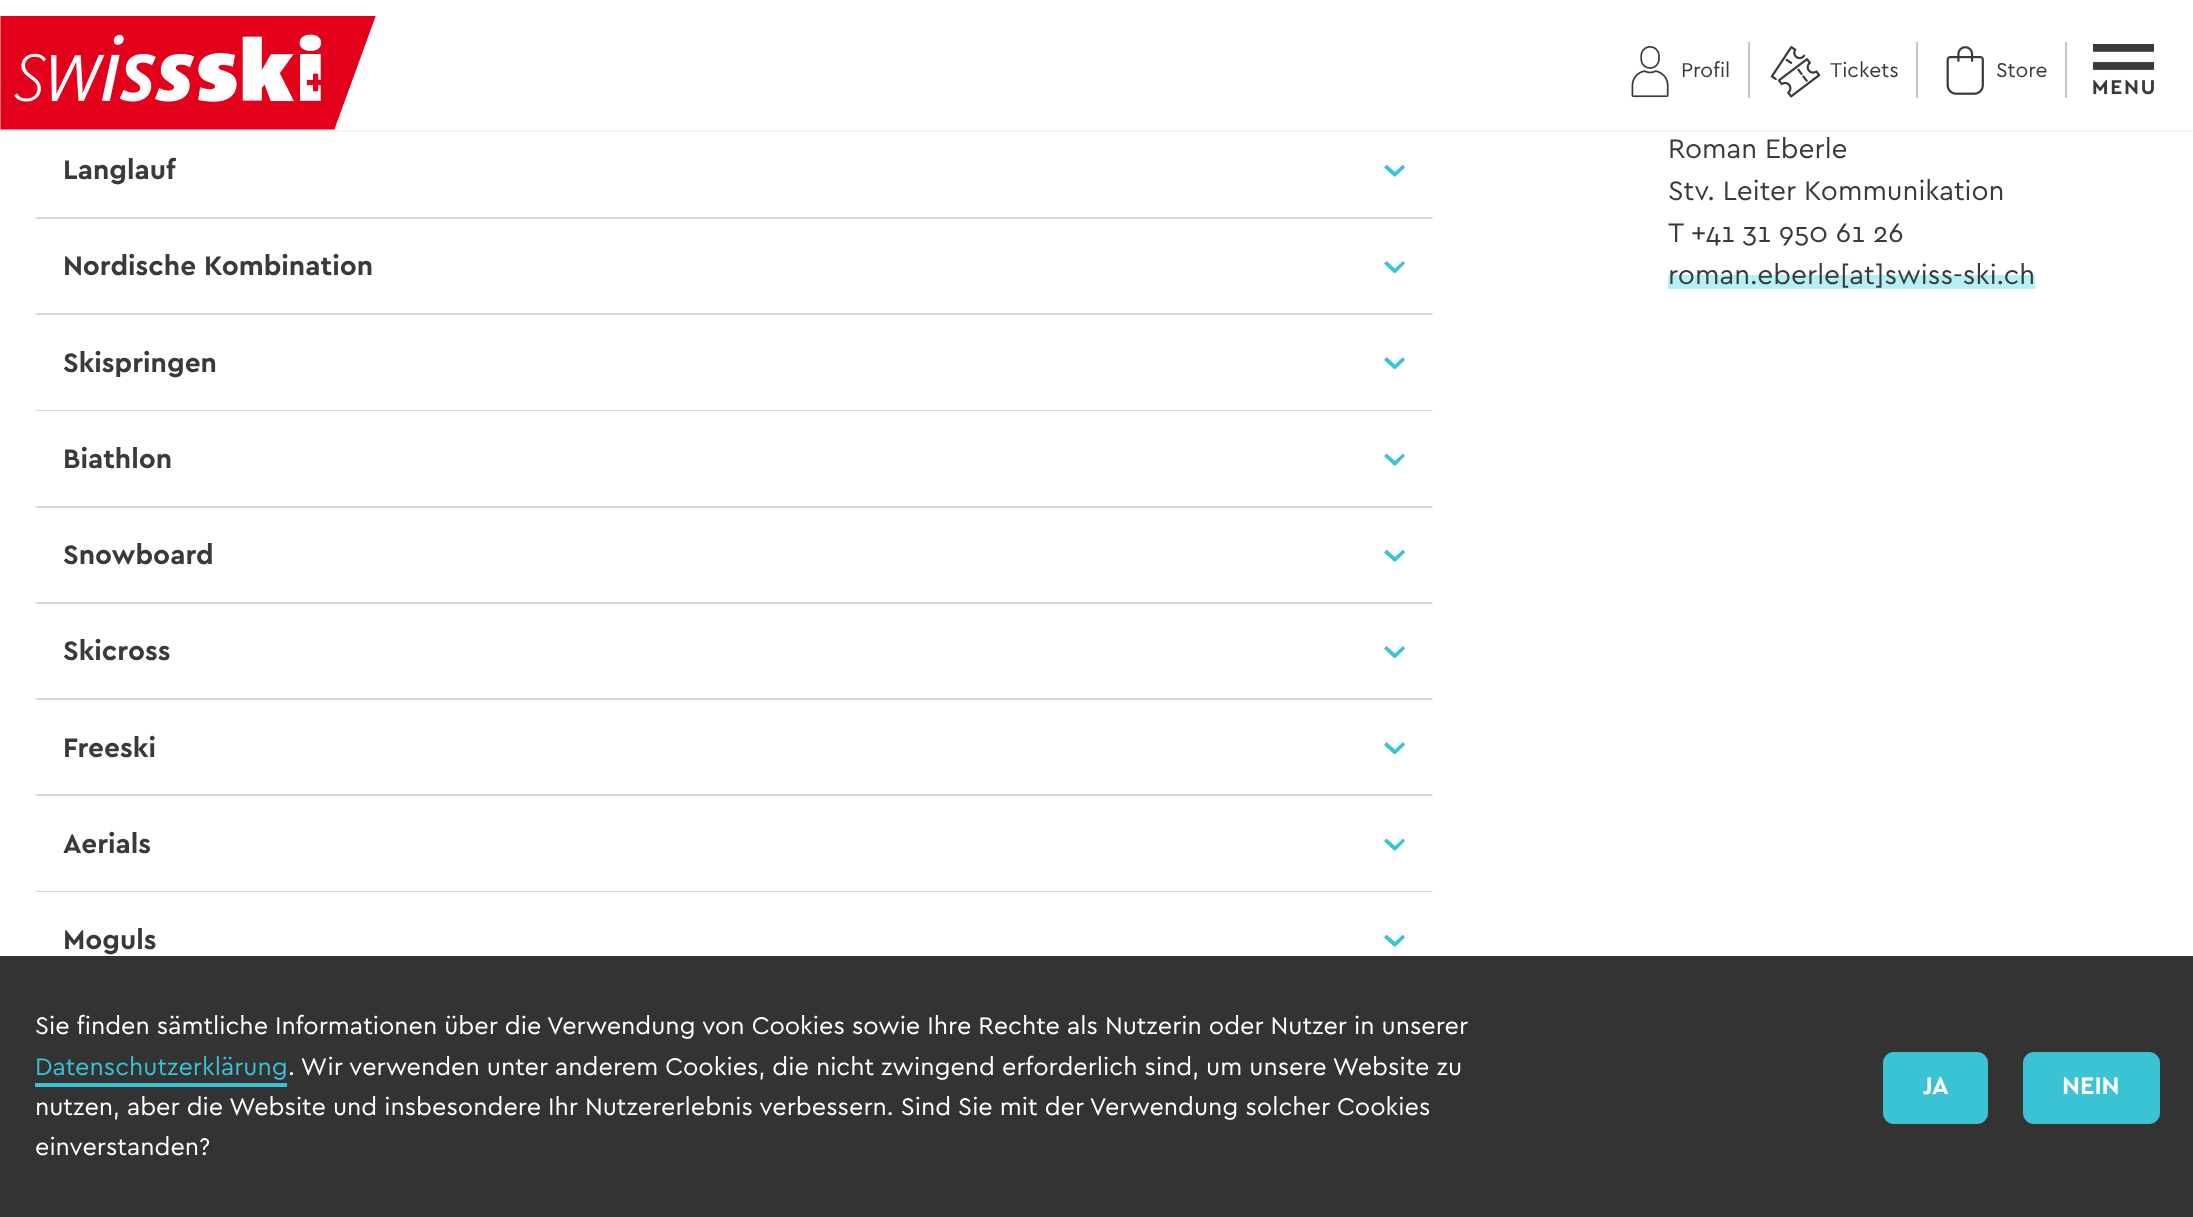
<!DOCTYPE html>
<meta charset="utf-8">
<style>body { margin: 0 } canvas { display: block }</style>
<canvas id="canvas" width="2193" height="1217"></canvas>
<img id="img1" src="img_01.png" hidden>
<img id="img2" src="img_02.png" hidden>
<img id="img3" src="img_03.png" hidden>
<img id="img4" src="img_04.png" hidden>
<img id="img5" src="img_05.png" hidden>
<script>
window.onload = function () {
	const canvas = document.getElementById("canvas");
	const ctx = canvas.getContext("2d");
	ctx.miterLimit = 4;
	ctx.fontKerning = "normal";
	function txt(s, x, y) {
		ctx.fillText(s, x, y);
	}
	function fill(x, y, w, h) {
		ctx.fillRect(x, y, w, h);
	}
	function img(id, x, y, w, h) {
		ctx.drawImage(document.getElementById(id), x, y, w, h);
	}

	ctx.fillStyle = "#FFFFFF";
	fill(0, 0, 2193, 1217);
	ctx.fillStyle = "#F5F5F5";
	fill(0, 130, 2193, 2);
	img("img1", 0, 16, 376, 114);
	img("img2", 1631, 46, 38, 52);
	ctx.fillStyle = "#C4C4C4";
	fill(1748, 42, 2, 56);
	img("img3", 1770, 46, 51, 52);
	fill(1916, 42, 2, 56);
	img("img4", 1946, 46, 38, 49);
	fill(2065, 42, 2, 56);
	img("img5", 2093, 44, 61, 51);
	ctx.save();
	ctx.beginPath();
	ctx.rect(1384, 165, 21, 12);
	ctx.clip();
	ctx.fillStyle = "#39C3D4";
	ctx.beginPath();
	ctx.moveTo(1384, 167.5);
	ctx.lineTo(1386.5, 164.5);
	ctx.lineTo(1395, 172);
	ctx.lineTo(1403, 164.5);
	ctx.lineTo(1405, 167.5);
	ctx.lineTo(1395.5, 176.5);
	ctx.lineTo(1394, 176.5);
	ctx.closePath();
	ctx.fill();
	ctx.restore();
	ctx.fillStyle = "#D7D7D7";
	ctx.beginPath();
	ctx.moveTo(35, 217);
	ctx.lineTo(1433, 217);
	ctx.lineTo(1432, 219);
	ctx.lineTo(37, 219);
	ctx.closePath();
	ctx.fill();
	ctx.fillStyle = "#39C3D4";
	ctx.beginPath();
	ctx.moveTo(1384, 263.5);
	ctx.lineTo(1386.5, 261);
	ctx.lineTo(1395, 268.5);
	ctx.lineTo(1403, 261);
	ctx.lineTo(1405, 263.5);
	ctx.lineTo(1395.5, 273);
	ctx.lineTo(1394, 273);
	ctx.closePath();
	ctx.fill();
	ctx.fillStyle = "#D7D7D7";
	ctx.beginPath();
	ctx.moveTo(35, 313);
	ctx.lineTo(1433, 313);
	ctx.lineTo(1432, 315);
	ctx.lineTo(37, 315);
	ctx.closePath();
	ctx.fill();
	ctx.fillStyle = "#39C3D4";
	ctx.beginPath();
	ctx.moveTo(1384, 360);
	ctx.lineTo(1386.5, 357);
	ctx.lineTo(1395, 364.5);
	ctx.lineTo(1403, 357);
	ctx.lineTo(1405, 360);
	ctx.lineTo(1395.5, 369);
	ctx.lineTo(1394, 369);
	ctx.closePath();
	ctx.fill();
	ctx.fillStyle = "#D7D7D7";
	ctx.beginPath();
	ctx.moveTo(35, 410);
	ctx.lineTo(1433, 410);
	ctx.lineTo(1432, 411);
	ctx.lineTo(37, 411);
	ctx.closePath();
	ctx.fill();
	ctx.fillStyle = "#39C3D4";
	ctx.beginPath();
	ctx.moveTo(1384, 456);
	ctx.lineTo(1386.5, 453.5);
	ctx.lineTo(1395, 461);
	ctx.lineTo(1403, 453.5);
	ctx.lineTo(1405, 456);
	ctx.lineTo(1395.5, 465.5);
	ctx.lineTo(1394, 465.5);
	ctx.closePath();
	ctx.fill();
	ctx.fillStyle = "#D7D7D7";
	ctx.beginPath();
	ctx.moveTo(35, 506);
	ctx.lineTo(1433, 506);
	ctx.lineTo(1432, 508);
	ctx.lineTo(37, 508);
	ctx.closePath();
	ctx.fill();
	ctx.save();
	ctx.beginPath();
	ctx.rect(1384, 550, 21, 12);
	ctx.clip();
	ctx.fillStyle = "#39C3D4";
	ctx.beginPath();
	ctx.moveTo(1384, 552.5);
	ctx.lineTo(1386.5, 549.5);
	ctx.lineTo(1395, 557);
	ctx.lineTo(1403, 549.5);
	ctx.lineTo(1405, 552.5);
	ctx.lineTo(1395.5, 561.5);
	ctx.lineTo(1394, 561.5);
	ctx.closePath();
	ctx.fill();
	ctx.restore();
	ctx.beginPath();
	ctx.moveTo(35, 602);
	ctx.lineTo(1433, 602);
	ctx.lineTo(1432, 604);
	ctx.lineTo(37, 604);
	ctx.closePath();
	ctx.fill();
	ctx.fillStyle = "#39C3D4";
	ctx.beginPath();
	ctx.moveTo(1384, 648.5);
	ctx.lineTo(1386.5, 646);
	ctx.lineTo(1395, 653.5);
	ctx.lineTo(1403, 646);
	ctx.lineTo(1405, 648.5);
	ctx.lineTo(1395.5, 658);
	ctx.lineTo(1394, 658);
	ctx.closePath();
	ctx.fill();
	ctx.fillStyle = "#D7D7D7";
	ctx.beginPath();
	ctx.moveTo(35, 698);
	ctx.lineTo(1433, 698);
	ctx.lineTo(1432, 700);
	ctx.lineTo(37, 700);
	ctx.closePath();
	ctx.fill();
	ctx.fillStyle = "#39C3D4";
	ctx.beginPath();
	ctx.moveTo(1384, 745);
	ctx.lineTo(1386.5, 742);
	ctx.lineTo(1395, 749.5);
	ctx.lineTo(1403, 742);
	ctx.lineTo(1405, 745);
	ctx.lineTo(1395.5, 754);
	ctx.lineTo(1394, 754);
	ctx.closePath();
	ctx.fill();
	ctx.fillStyle = "#D7D7D7";
	ctx.beginPath();
	ctx.moveTo(35, 794);
	ctx.lineTo(1433, 794);
	ctx.lineTo(1432, 796);
	ctx.lineTo(37, 796);
	ctx.closePath();
	ctx.fill();
	ctx.fillStyle = "#39C3D4";
	ctx.beginPath();
	ctx.moveTo(1384, 841);
	ctx.lineTo(1386.5, 838.5);
	ctx.lineTo(1395, 846);
	ctx.lineTo(1403, 838.5);
	ctx.lineTo(1405, 841);
	ctx.lineTo(1395.5, 850.5);
	ctx.lineTo(1394, 850.5);
	ctx.closePath();
	ctx.fill();
	ctx.fillStyle = "#D7D7D7";
	ctx.beginPath();
	ctx.moveTo(35, 891);
	ctx.lineTo(1433, 891);
	ctx.lineTo(1432, 892);
	ctx.lineTo(37, 892);
	ctx.closePath();
	ctx.fill();
	ctx.save();
	ctx.beginPath();
	ctx.rect(1384, 935, 21, 12);
	ctx.clip();
	ctx.fillStyle = "#39C3D4";
	ctx.beginPath();
	ctx.moveTo(1384, 937.5);
	ctx.lineTo(1386.5, 934.5);
	ctx.lineTo(1395, 942);
	ctx.lineTo(1403, 934.5);
	ctx.lineTo(1405, 937.5);
	ctx.lineTo(1395.5, 946.5);
	ctx.lineTo(1394, 946.5);
	ctx.closePath();
	ctx.fill();
	ctx.restore();
	ctx.fillStyle = "#B5F0F7";
	fill(1668, 275, 367, 14);
	ctx.fillStyle = "#333333";
	fill(0, 956, 2193, 261);
	ctx.fillStyle = "#39C3D4";
	fill(35, 1083, 252, 4);
	ctx.beginPath();
	ctx.roundRect(1884, 1053, 103, 70, 10);
	ctx.fill();
	ctx.strokeStyle = "#39C3D4";
	ctx.lineWidth = 2;
	ctx.stroke();
	ctx.beginPath();
	ctx.roundRect(2024, 1053, 135, 70, 10);
	ctx.fill();
	ctx.stroke();
	ctx.font = "21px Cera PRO";
	ctx.fillStyle = "#3A3A3A";
	txt("Profil", 1681, 77);
	txt("Tickets", 1830, 77);
	txt("Store", 1996, 77);
	ctx.font = "bold 28px Cera PRO";
	txt("Langlauf", 63, 179);
	txt("Nordische Kombination", 63, 275);
	txt("Skispringen", 63, 372);
	txt("Biathlon", 63, 468);
	txt("Snowboard", 63, 564);
	txt("Skicross", 63, 660);
	txt("Freeski", 63, 757);
	txt("Aerials", 63, 853);
	txt("Moguls", 63, 949);
	ctx.font = "28px Cera PRO";
	txt("Roman Eberle", 1668, 158);
	txt("Stv. Leiter Kommunikation", 1668, 200);
	ctx.font = "28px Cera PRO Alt";
	txt("T +41 31 950 61 26", 1668, 242);
	ctx.font = "28px Cera PRO";
	txt("roman.eberle[at]swiss-ski.ch", 1668, 284);
	ctx.font = "25.2px Cera PRO";
	ctx.fillStyle = "#FFFFFF";
	txt("Sie finden sämtliche Informationen über die Verwendung von Cookies sowie Ihre Rechte als Nutzerin oder Nutzer in unserer", 35, 1034);
	ctx.fillStyle = "#39C3D4";
	txt("Datenschutzerklärung", 35, 1075);
	ctx.fillStyle = "#FFFFFF";
	txt(". Wir verwenden unter anderem Cookies, die nicht zwingend erforderlich sind, um unsere Website zu", 288, 1075);
	txt("nutzen, aber die Website und insbesondere Ihr Nutzererlebnis verbessern. Sind Sie mit der Verwendung solcher Cookies", 35, 1115);
	txt("einverstanden?", 35, 1155);
	ctx.font = "bold 25.2px Cera PRO";
	txt("JA", 1923, 1094);
	txt("NEIN", 2062, 1094);
};
</script>
